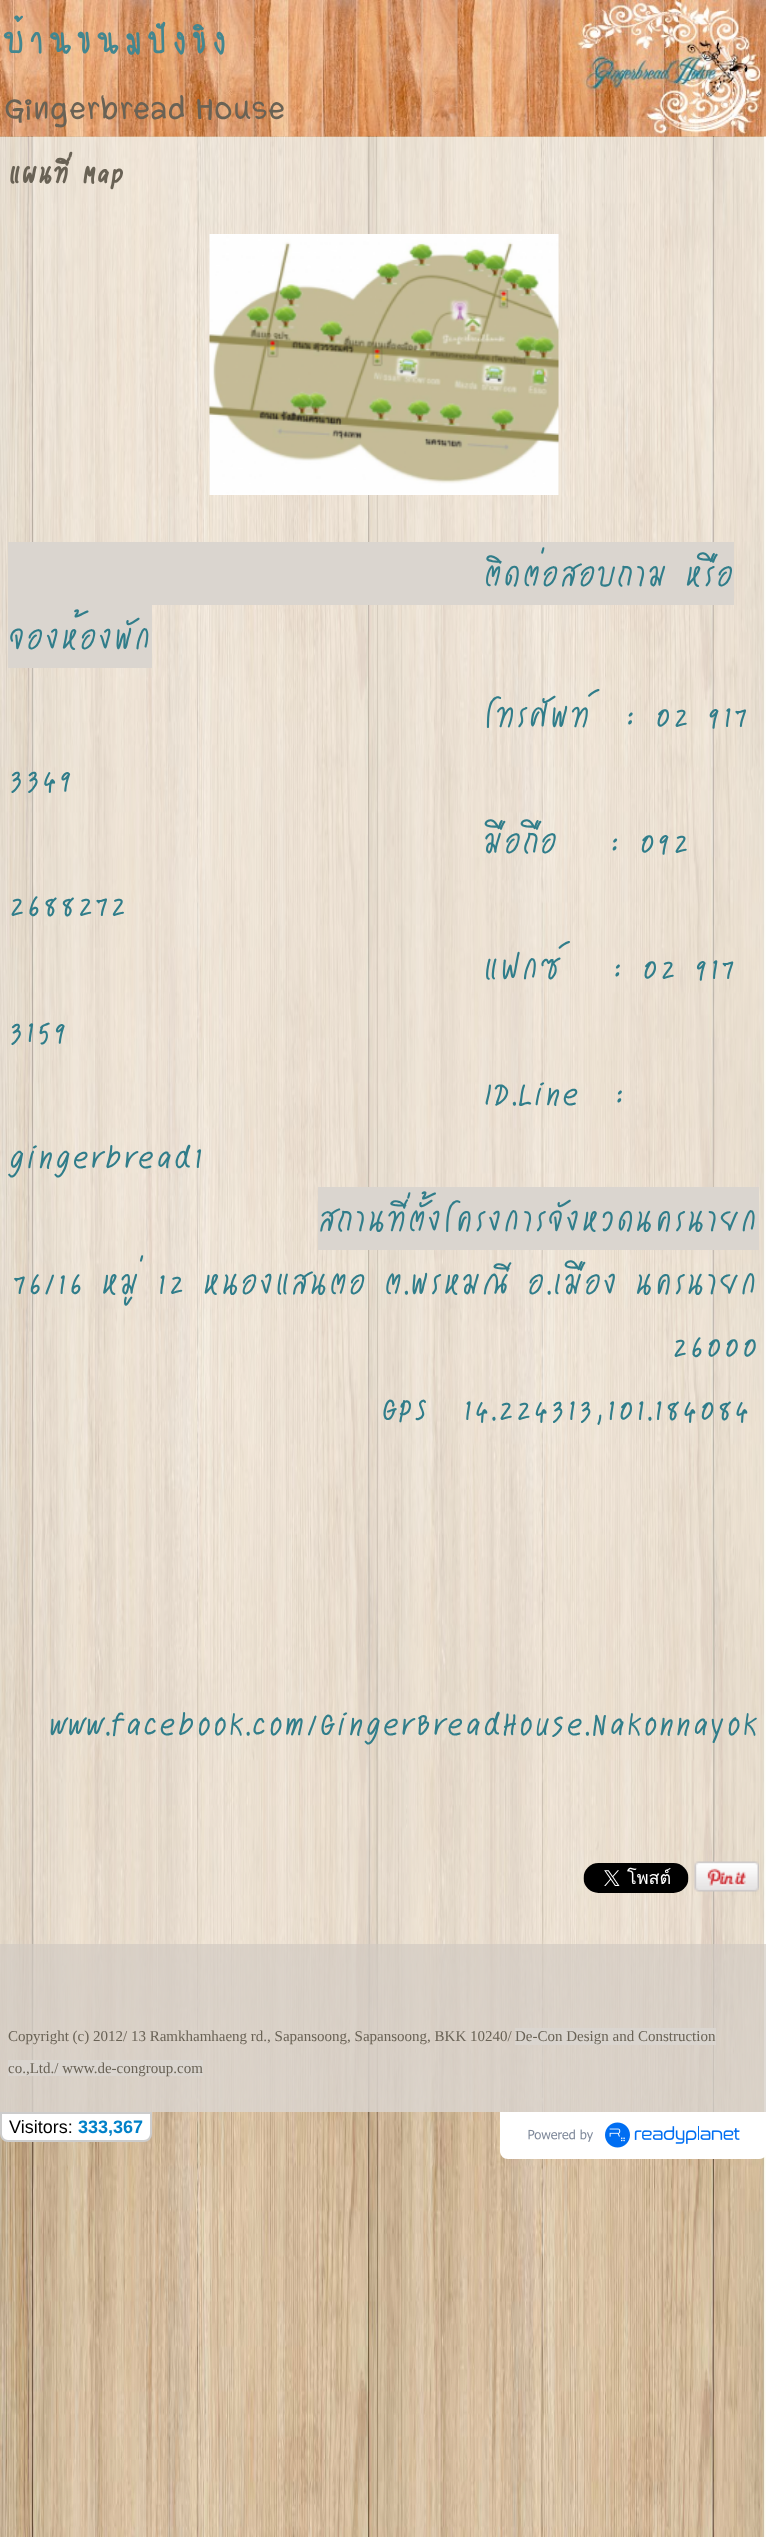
<!DOCTYPE html>
<meta charset="utf-8">
<style>body { margin: 0 } canvas { display: block }</style>
<canvas id="canvas" width="766" height="2537"></canvas>
<img id="img1" src="img_01.png" hidden>
<img id="img2" src="img_02.png" hidden>
<img id="img3" src="img_03.png" hidden>
<img id="img4" src="img_04.png" hidden>
<img id="img5" src="img_05.png" hidden>
<img id="img6" src="img_06.png" hidden>
<script>
window.onload = function () {
	const canvas = document.getElementById("canvas");
	const ctx = canvas.getContext("2d");
	ctx.miterLimit = 4;
	ctx.fontKerning = "normal";
	function txt(s, x, y) {
		ctx.fillText(s, x, y);
	}
	function fill(x, y, w, h) {
		ctx.fillRect(x, y, w, h);
	}
	function img(id, x, y, w, h) {
		ctx.drawImage(document.getElementById(id), x, y, w, h);
	}

	ctx.fillStyle = "#FFFFFF";
	fill(0, 0, 766, 2537);
	img("img1", 0, 136, 766, 2401);
	img("img2", 0, 0, 766, 137);
	ctx.fillStyle = "rgba(255, 255, 255, 0.55)";
	fill(0, 137, 766, 1807);
	img("img3", 209, 234, 350, 261);
	ctx.fillStyle = "#DAD5CF";
	fill(8, 542, 726, 63);
	fill(8, 605, 144, 63);
	fill(318, 1187, 441, 63);
	img("img4", 583, 1863, 106, 30);
	img("img5", 694, 1861, 65, 31);
	ctx.fillStyle = "rgba(218, 213, 207, 0.85)";
	fill(0, 1944, 766, 168);
	ctx.fillStyle = "#DAD5CF";
	fill(515, 2028, 201, 17);
	fill(8, 2060, 195, 16);
	ctx.fillStyle = "#FFFFFF";
	ctx.beginPath();
	ctx.roundRect(1, 2113, 150, 28, [0, 0, 7, 7]);
	ctx.fill();
	ctx.strokeStyle = "#CCCCCC";
	ctx.lineWidth = 2;
	ctx.stroke();
	ctx.beginPath();
	ctx.moveTo(500, 2112);
	ctx.lineTo(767, 2112);
	ctx.lineTo(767, 2151);
	ctx.bezierCurveTo(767, 2155.5, 763.5, 2159, 759, 2159);
	ctx.lineTo(508, 2159);
	ctx.bezierCurveTo(503.5, 2159, 500, 2155.5, 500, 2151);
	ctx.closePath();
	ctx.fill();
	img("img6", 528, 2122, 212, 26);
	ctx.font = "57.5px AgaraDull";
	ctx.fillStyle = "#43868F";
	txt("บ้ า น ข น ม ปั ง ขิ ง", 4, 53);
	ctx.font = "italic 57.5px 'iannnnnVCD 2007'";
	ctx.fillStyle = "#696255";
	txt("Gingerbread House", 4, 119);
	ctx.font = "bold 42px '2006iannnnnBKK'";
	txt("แผนที่ Map", 8, 183);
	ctx.font = "54px '2006iannnnnBKK'";
	ctx.fillStyle = "#307D8A";
	txt("ติดต่อสอบถาม หรือ", 483, 586);
	txt("จองห้องพัก", 8, 649);
	txt("โทรศัพท์  : 02 917", 483, 727);
	txt("3349", 8, 790);
	txt("มือถือ   : 092", 483, 853);
	txt("2688272", 8, 916);
	txt("แฟกซ์   : 02 917", 483, 979);
	txt("3159", 8, 1042);
	txt("ID.Line  :", 483, 1105);
	txt("gingerbread1", 8, 1168);
	txt("สถานที่ตั้งโครงการจังหวดนครนายก", 318, 1231);
	txt("76/16 หมู่ 12 หนองแสนตอ ต.พรหมณี อ.เมือง นครนายก", 12, 1294);
	txt("26000", 671, 1357);
	txt("GPS  14.224313,101.184084", 381, 1420);
	txt("www.facebook.com/GingerBreadHouse.Nakonnayok", 49, 1735);
	ctx.font = "15px Liberation Serif";
	ctx.fillStyle = "#696255";
	txt("Copyright (c) 2012/ 13 Ramkhamhaeng rd., Sapansoong, Sapansoong, BKK 10240/", 8, 2041);
	txt("De-Con Design and Construction", 515, 2041);
	txt("co.,Ltd./ www.de-congroup.com", 8, 2073);
	ctx.font = "18px Liberation Sans";
	ctx.fillStyle = "#000000";
	txt("Visitors:", 9, 2133);
	ctx.font = "bold 18px Liberation Sans";
	ctx.fillStyle = "#0081C8";
	txt("333,367", 78, 2133);
};
</script>
